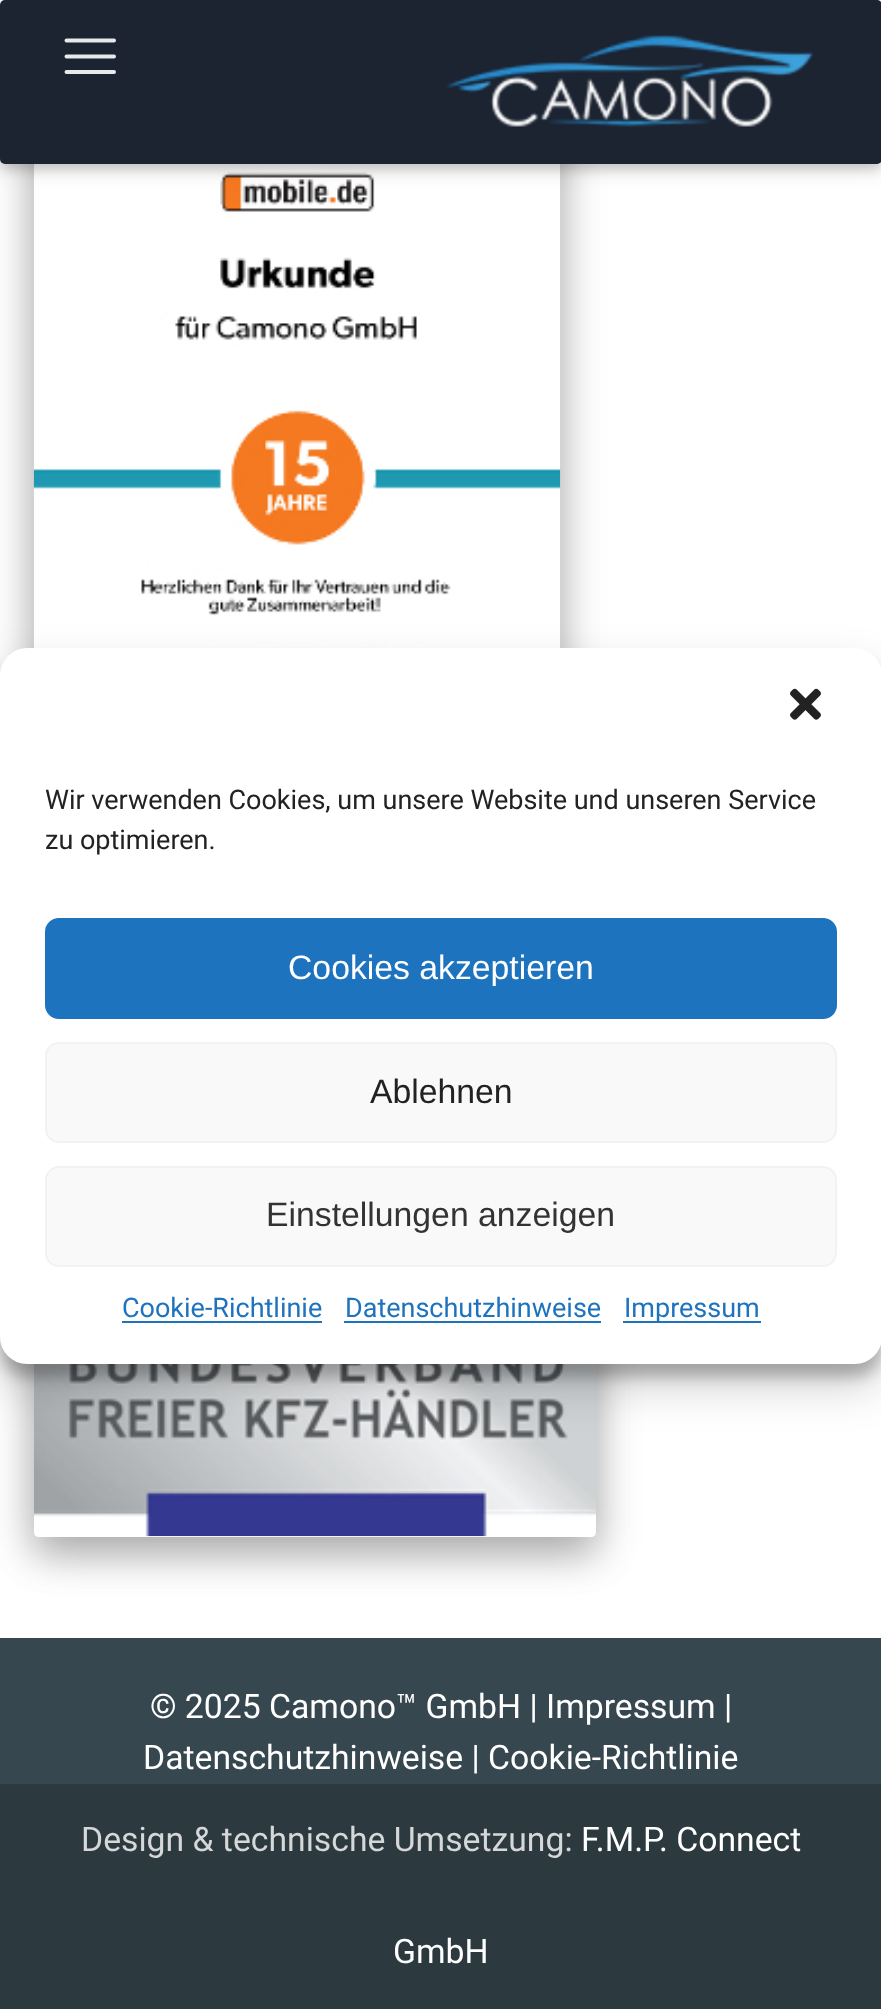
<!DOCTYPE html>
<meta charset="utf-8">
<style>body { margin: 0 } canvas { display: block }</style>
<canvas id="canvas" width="881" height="2009"></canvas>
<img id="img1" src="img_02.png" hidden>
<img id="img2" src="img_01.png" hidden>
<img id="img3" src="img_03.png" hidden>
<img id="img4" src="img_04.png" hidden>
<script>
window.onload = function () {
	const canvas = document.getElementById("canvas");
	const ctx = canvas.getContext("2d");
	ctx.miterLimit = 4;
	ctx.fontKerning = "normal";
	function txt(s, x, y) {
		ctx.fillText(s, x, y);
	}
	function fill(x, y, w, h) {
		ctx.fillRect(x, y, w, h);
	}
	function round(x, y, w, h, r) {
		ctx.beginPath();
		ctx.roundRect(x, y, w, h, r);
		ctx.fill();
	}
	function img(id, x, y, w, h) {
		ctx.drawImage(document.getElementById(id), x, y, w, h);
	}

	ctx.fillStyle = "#FFFFFF";
	fill(0, 0, 881, 2009);
	ctx.fillStyle = "rgba(0, 0, 0, 0.19)";
	ctx.filter = "blur(22.5px)";
	ctx.beginPath();
	ctx.roundRect(34, 110, 526, 745, 5);
	ctx.fill();
	ctx.filter = "none";
	ctx.fillStyle = "rgba(0, 0, 0, 0.2)";
	ctx.filter = "blur(19px)";
	ctx.beginPath();
	ctx.roundRect(34, 115, 526, 745, 5);
	ctx.fill();
	ctx.filter = "none";
	img("img1", 33, 164, 528, 484);
	ctx.fillStyle = "rgba(0, 0, 0, 0.12)";
	ctx.filter = "blur(11px)";
	ctx.beginPath();
	ctx.roundRect(0, 5, 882, 164, 5);
	ctx.fill();
	ctx.filter = "none";
	ctx.fillStyle = "rgba(0, 0, 0, 0.16)";
	ctx.filter = "blur(5.5px)";
	ctx.beginPath();
	ctx.roundRect(0, 5, 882, 164, 5);
	ctx.fill();
	ctx.filter = "none";
	ctx.fillStyle = "#1C2331";
	round(0, 0, 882, 164, 5);
	ctx.beginPath();
	ctx.moveTo(66.5, 40.5);
	ctx.lineTo(114, 40.5);
	ctx.moveTo(66.5, 56.5);
	ctx.lineTo(114, 56.5);
	ctx.moveTo(66.5, 72);
	ctx.lineTo(114, 72);
	ctx.strokeStyle = "#E8E9EA";
	ctx.lineWidth = 4;
	ctx.lineCap = "round";
	ctx.stroke();
	img("img2", 445, 35, 369, 92);
	ctx.save();
	ctx.beginPath();
	ctx.moveTo(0, 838);
	ctx.lineTo(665, 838);
	ctx.lineTo(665, 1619);
	ctx.lineTo(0, 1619);
	ctx.closePath();
	ctx.moveTo(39, 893);
	ctx.lineTo(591, 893);
	ctx.bezierCurveTo(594, 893, 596, 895, 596, 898);
	ctx.lineTo(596, 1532);
	ctx.bezierCurveTo(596, 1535, 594, 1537, 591, 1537);
	ctx.lineTo(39, 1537);
	ctx.bezierCurveTo(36, 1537, 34, 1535, 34, 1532);
	ctx.lineTo(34, 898);
	ctx.bezierCurveTo(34, 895, 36, 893, 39, 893);
	ctx.closePath();
	ctx.clip("evenodd");
	ctx.fillStyle = "rgba(0, 0, 0, 0.19)";
	ctx.filter = "blur(22.5px)";
	ctx.beginPath();
	ctx.roundRect(34, 907, 562, 643, 5);
	ctx.fill();
	ctx.filter = "none";
	ctx.restore();
	ctx.save();
	ctx.beginPath();
	ctx.moveTo(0, 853);
	ctx.lineTo(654, 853);
	ctx.lineTo(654, 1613);
	ctx.lineTo(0, 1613);
	ctx.closePath();
	ctx.moveTo(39, 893);
	ctx.lineTo(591, 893);
	ctx.bezierCurveTo(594, 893, 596, 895, 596, 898);
	ctx.lineTo(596, 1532);
	ctx.bezierCurveTo(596, 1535, 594, 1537, 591, 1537);
	ctx.lineTo(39, 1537);
	ctx.bezierCurveTo(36, 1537, 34, 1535, 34, 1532);
	ctx.lineTo(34, 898);
	ctx.bezierCurveTo(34, 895, 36, 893, 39, 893);
	ctx.closePath();
	ctx.clip("evenodd");
	ctx.fillStyle = "rgba(0, 0, 0, 0.2)";
	ctx.filter = "blur(19px)";
	ctx.beginPath();
	ctx.roundRect(34, 911, 562, 644, 5);
	ctx.fill();
	ctx.filter = "none";
	ctx.restore();
	img("img3", 34, 1364, 562, 173);
	ctx.fillStyle = "rgba(0, 0, 0, 0.23)";
	ctx.filter = "blur(7px)";
	ctx.beginPath();
	ctx.roundRect(0, 662, 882, 715, 27);
	ctx.fill();
	ctx.filter = "none";
	ctx.fillStyle = "rgba(0, 0, 0, 0.19)";
	ctx.filter = "blur(22.5px)";
	ctx.beginPath();
	ctx.roundRect(0, 671, 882, 715, 27);
	ctx.fill();
	ctx.filter = "none";
	ctx.fillStyle = "#FFFFFF";
	round(0, 648, 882, 716, 27);
	img("img4", 790, 688, 31, 32);
	ctx.fillStyle = "#1E73BE";
	ctx.beginPath();
	ctx.roundRect(46, 919, 790, 99, 13);
	ctx.fill();
	ctx.strokeStyle = "#1E73BE";
	ctx.lineWidth = 2;
	ctx.stroke();
	ctx.fillStyle = "#F9F9F9";
	ctx.beginPath();
	ctx.roundRect(46, 1043, 790, 99, 13);
	ctx.fill();
	ctx.strokeStyle = "#F2F2F2";
	ctx.stroke();
	ctx.beginPath();
	ctx.roundRect(46, 1167, 790, 99, 13);
	ctx.fill();
	ctx.stroke();
	ctx.fillStyle = "#1E73BE";
	fill(122, 1321, 200, 2);
	fill(344, 1321, 257, 2);
	fill(623, 1321, 138, 2);
	ctx.fillStyle = "#37474F";
	fill(0, 1638, 881, 146);
	ctx.fillStyle = "#2C393F";
	fill(0, 1784, 881, 225);
	ctx.font = "27px Roboto";
	ctx.fillStyle = "#222222";
	txt("Wir verwenden Cookies, um unsere Website und unseren Service", 45, 809);
	txt("zu optimieren.", 45, 849);
	ctx.font = "33.75px Liberation Sans";
	ctx.fillStyle = "#FFFFFF";
	txt("Cookies akzeptieren", 288, 979);
	ctx.fillStyle = "#222222";
	txt("Ablehnen", 370, 1103);
	ctx.fillStyle = "#333333";
	txt("Einstellungen anzeigen", 266, 1226);
	ctx.font = "27px Roboto";
	ctx.fillStyle = "#1E73BE";
	txt("Cookie-Richtlinie", 122, 1317);
	txt("Datenschutzhinweise", 345, 1317);
	txt("Impressum", 624, 1317);
	ctx.font = "33.75px Roboto";
	ctx.fillStyle = "#FFFFFF";
	txt("© 2025 Camono™ GmbH | Impressum |", 150, 1718);
	txt("Datenschutzhinweise | Cookie-Richtlinie", 143, 1769);
	ctx.fillStyle = "#D5D7D9";
	txt("Design & technische Umsetzung:", 81, 1851);
	ctx.fillStyle = "#FFFFFF";
	txt("F.M.P. Connect", 581, 1851);
	txt("GmbH", 393, 1963);
};
</script>
